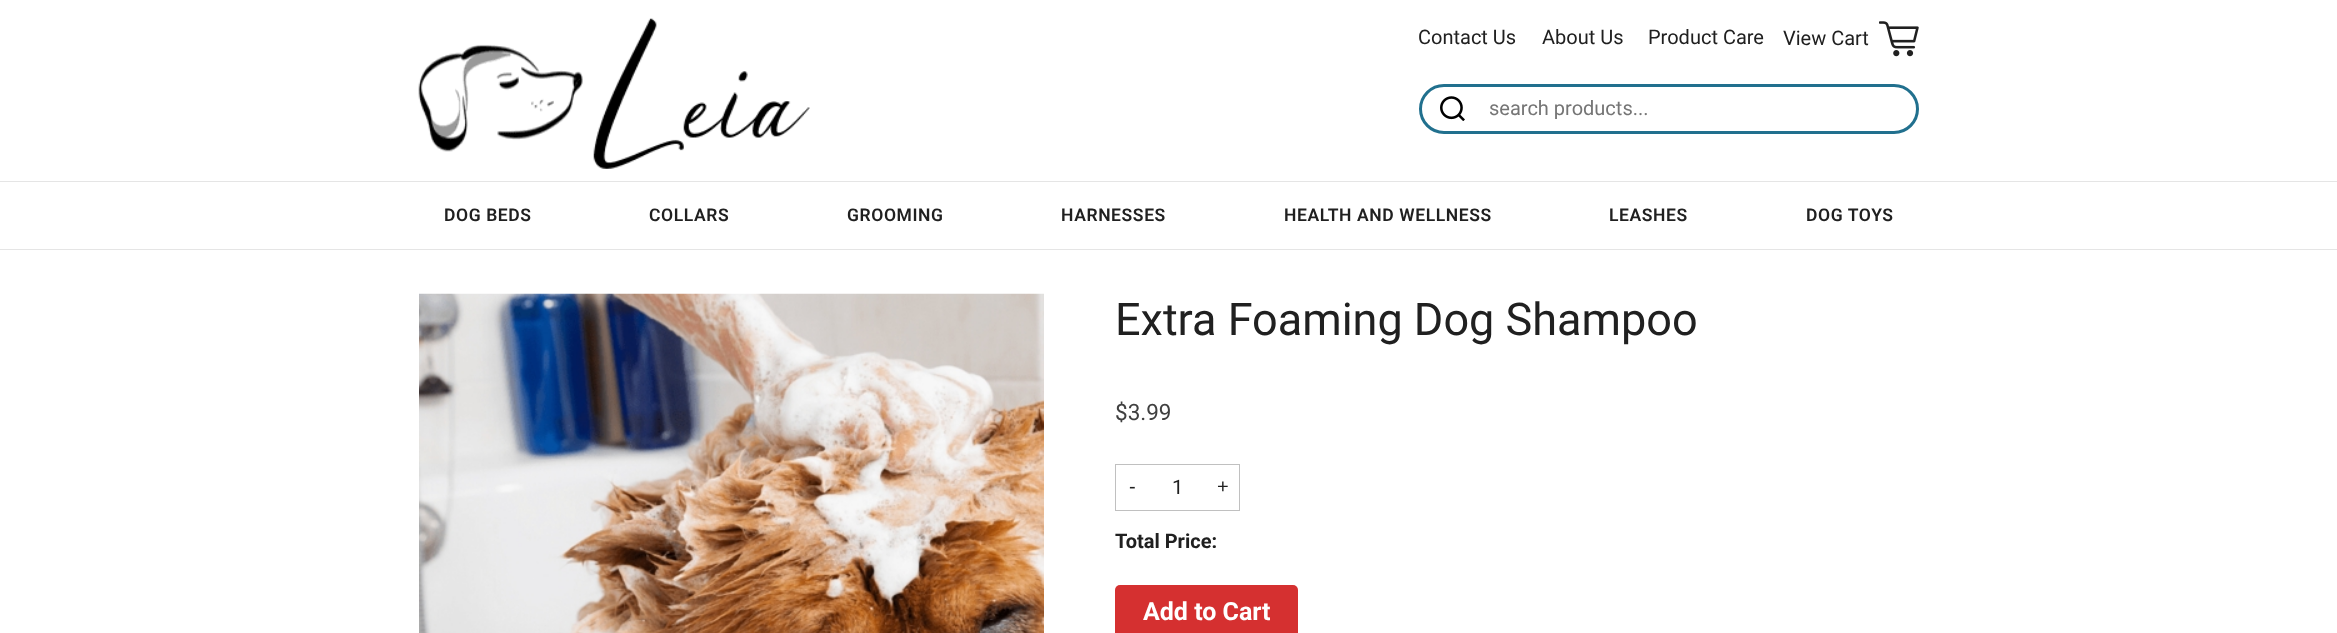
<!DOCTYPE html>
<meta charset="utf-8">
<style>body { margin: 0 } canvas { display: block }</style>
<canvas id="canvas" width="2337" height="633"></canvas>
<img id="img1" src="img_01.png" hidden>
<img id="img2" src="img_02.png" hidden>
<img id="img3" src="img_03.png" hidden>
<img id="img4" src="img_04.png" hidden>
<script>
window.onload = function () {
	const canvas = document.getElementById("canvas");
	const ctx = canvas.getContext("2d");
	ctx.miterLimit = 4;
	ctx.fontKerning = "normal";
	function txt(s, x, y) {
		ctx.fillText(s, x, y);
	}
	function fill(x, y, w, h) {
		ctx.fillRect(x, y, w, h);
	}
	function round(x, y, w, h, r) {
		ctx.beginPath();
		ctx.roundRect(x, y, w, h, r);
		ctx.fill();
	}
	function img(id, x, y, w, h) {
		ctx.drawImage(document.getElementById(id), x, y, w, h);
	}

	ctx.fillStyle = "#FFFFFF";
	fill(0, 0, 2337, 633);
	img("img1", 418, 18, 392, 151);
	img("img2", 1879, 21, 40, 36);
	ctx.beginPath();
	ctx.roundRect(1420.5, 85.5, 497, 47, 23.5);
	ctx.strokeStyle = "#21708E";
	ctx.lineWidth = 3;
	ctx.stroke();
	img("img3", 1440, 96, 25, 25);
	ctx.fillStyle = "#E5E5E5";
	fill(0, 181, 2337, 1);
	fill(0, 249, 2337, 1);
	img("img4", 419, 293, 625, 340);
	ctx.strokeStyle = "#C0C0C0";
	ctx.lineWidth = 1;
	ctx.strokeRect(1115.5, 464.5, 124, 46);
	ctx.fillStyle = "#D53030";
	round(1115, 585, 183, 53, 5);
	ctx.font = "20px Roboto";
	ctx.fillStyle = "#202020";
	txt("Contact Us", 1418, 44);
	txt("About Us", 1542, 44);
	txt("Product Care", 1648, 44);
	txt("View Cart", 1783, 45);
	ctx.fillStyle = "#757575";
	txt("search products...", 1489, 115);
	ctx.letterSpacing = "0.6px";
	ctx.font = "600 17.5px Roboto";
	ctx.fillStyle = "#202020";
	txt("DOG BEDS", 444, 221);
	txt("COLLARS", 649, 221);
	txt("GROOMING", 847, 221);
	txt("HARNESSES", 1061, 221);
	txt("HEALTH AND WELLNESS", 1284, 221);
	txt("LEASHES", 1609, 221);
	txt("DOG TOYS", 1806, 221);
	ctx.letterSpacing = "0px";
	ctx.font = "45px Roboto";
	txt("Extra Foaming Dog Shampoo", 1115, 335);
	ctx.font = "22.5px Roboto";
	ctx.fillStyle = "#404040";
	txt("$3.99", 1115, 420);
	ctx.font = "20px Liberation Sans";
	ctx.fillStyle = "#202020";
	txt("-", 1129, 493);
	ctx.font = "20px Roboto";
	txt("1", 1172, 494);
	ctx.font = "20px Liberation Sans";
	txt("+", 1217, 493);
	ctx.font = "bold 20px Roboto";
	txt("Total Price:", 1115, 548);
	ctx.font = "bold 25px Roboto";
	ctx.fillStyle = "#FFFFFF";
	txt("Add to Cart", 1143, 620);
};
</script>
